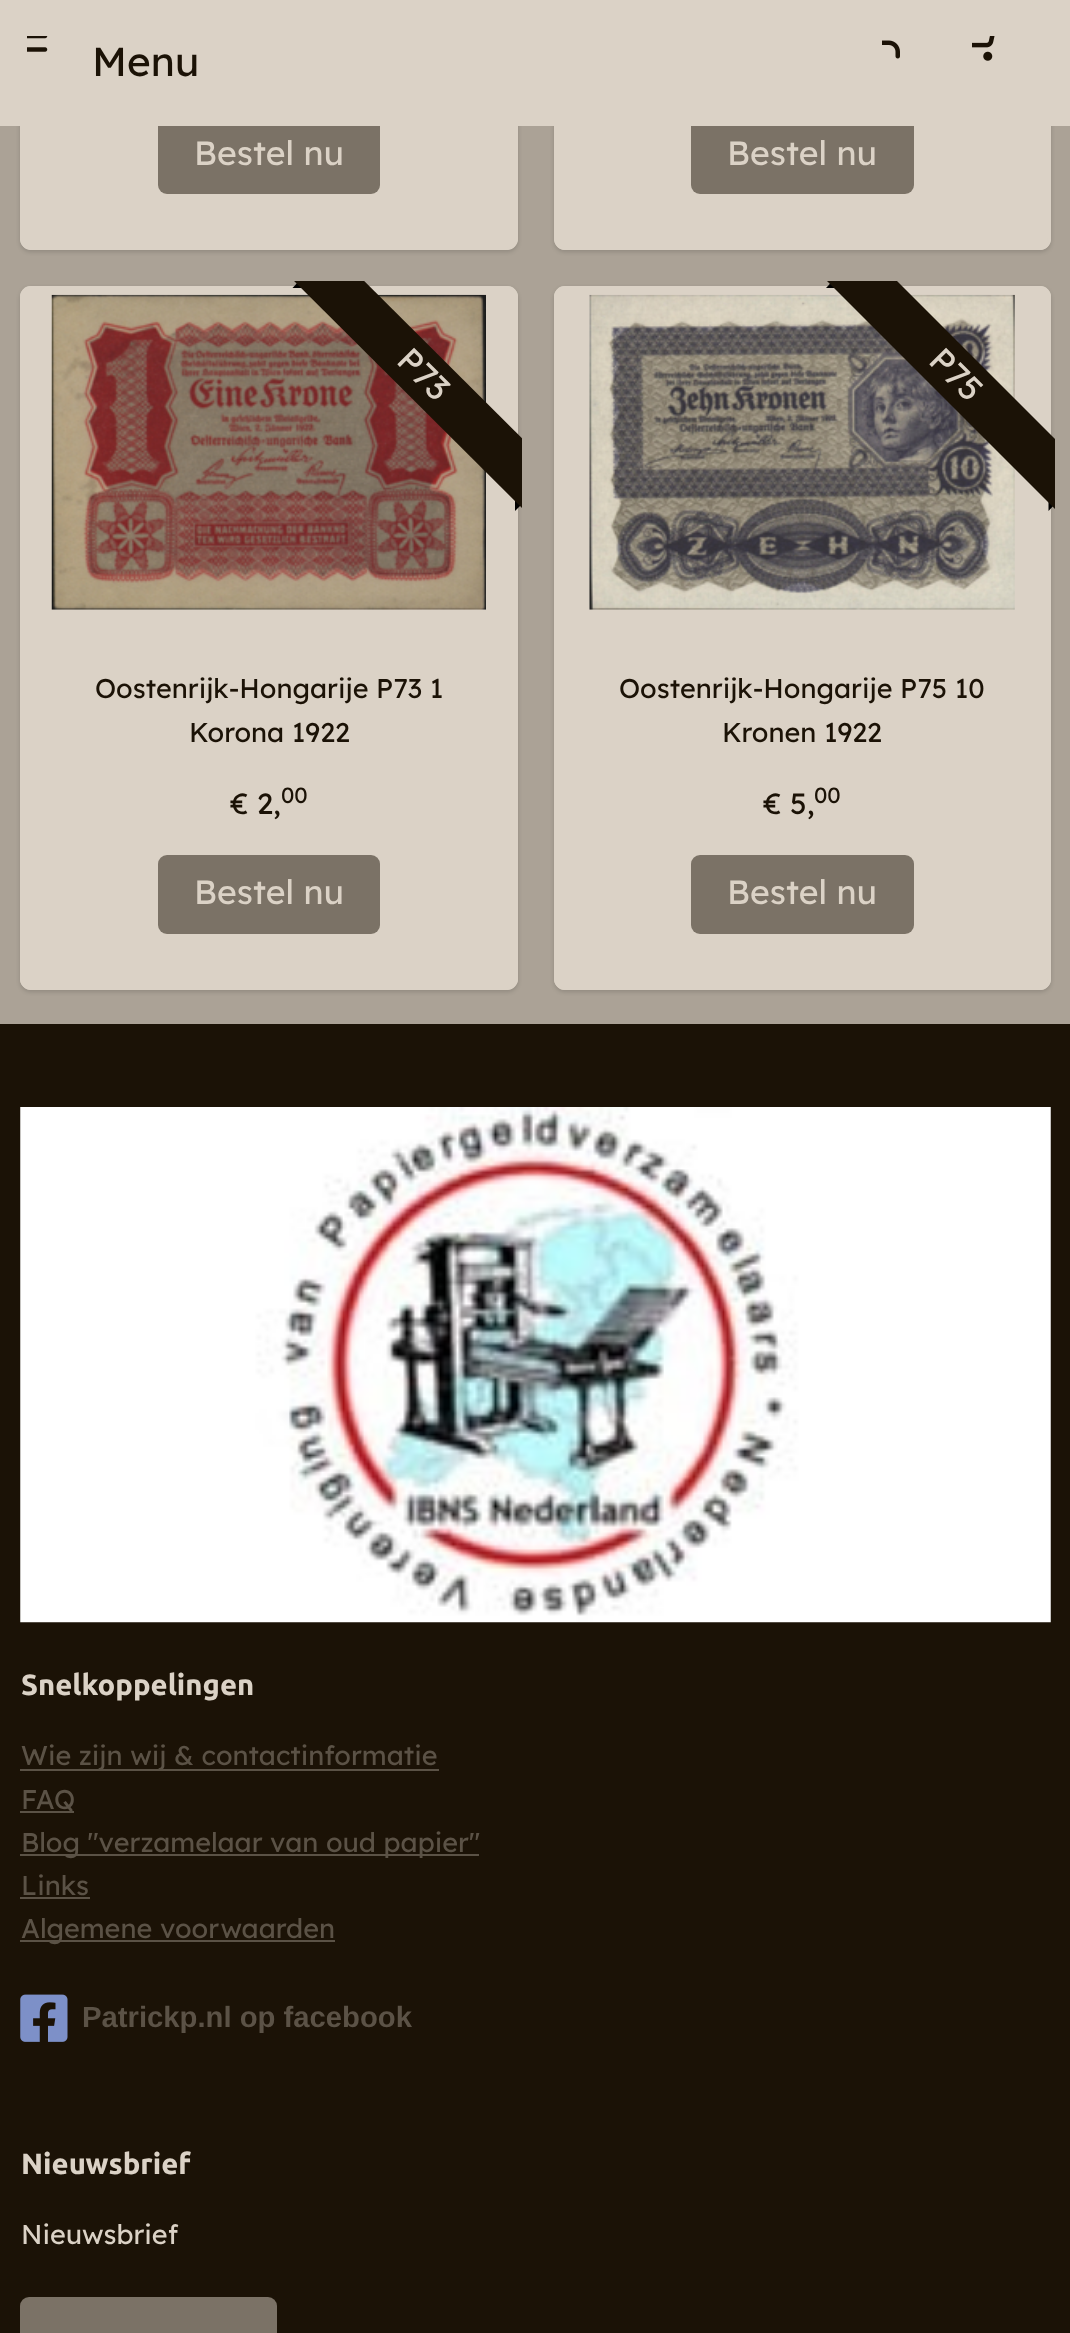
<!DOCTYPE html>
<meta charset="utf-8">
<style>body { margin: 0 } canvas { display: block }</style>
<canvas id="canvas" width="1070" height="2333"></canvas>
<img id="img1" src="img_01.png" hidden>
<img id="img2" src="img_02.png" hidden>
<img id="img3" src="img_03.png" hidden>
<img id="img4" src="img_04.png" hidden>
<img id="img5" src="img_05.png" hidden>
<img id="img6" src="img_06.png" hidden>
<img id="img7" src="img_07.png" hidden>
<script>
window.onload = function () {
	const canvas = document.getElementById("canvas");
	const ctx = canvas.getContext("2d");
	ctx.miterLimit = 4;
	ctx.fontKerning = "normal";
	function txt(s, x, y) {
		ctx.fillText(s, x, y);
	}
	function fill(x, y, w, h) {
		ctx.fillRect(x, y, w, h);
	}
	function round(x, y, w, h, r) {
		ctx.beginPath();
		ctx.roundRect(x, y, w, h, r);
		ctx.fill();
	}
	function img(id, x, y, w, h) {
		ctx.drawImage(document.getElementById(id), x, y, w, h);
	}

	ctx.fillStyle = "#ABA296";
	fill(0, 0, 1070, 2333);
	ctx.fillStyle = "rgba(0, 0, 0, 0.15)";
	ctx.filter = "blur(2px)";
	ctx.beginPath();
	ctx.roundRect(20, -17, 498, 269, 11);
	ctx.fill();
	ctx.filter = "none";
	ctx.fillStyle = "#DBD2C6";
	round(20, -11, 498, 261, 11);
	ctx.beginPath();
	ctx.moveTo(20, -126);
	ctx.lineTo(518, -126);
	ctx.lineTo(518, 238);
	ctx.bezierCurveTo(518, 245, 512, 250, 506, 250);
	ctx.lineTo(32, 250);
	ctx.bezierCurveTo(25, 250, 20, 245, 20, 238);
	ctx.closePath();
	ctx.moveTo(22, -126);
	ctx.lineTo(515, -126);
	ctx.lineTo(515, 238);
	ctx.bezierCurveTo(515, 243, 511, 248, 506, 248);
	ctx.lineTo(32, 248);
	ctx.bezierCurveTo(27, 248, 22, 243, 22, 238);
	ctx.closePath();
	ctx.fill("evenodd");
	ctx.fillStyle = "#7B7266";
	round(158, 115, 222, 79, 9);
	ctx.fillStyle = "rgba(0, 0, 0, 0.15)";
	ctx.filter = "blur(2px)";
	ctx.beginPath();
	ctx.roundRect(554, -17, 497, 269, 11);
	ctx.fill();
	ctx.filter = "none";
	ctx.fillStyle = "#DBD2C6";
	round(554, -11, 497, 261, 11);
	ctx.beginPath();
	ctx.moveTo(554, -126);
	ctx.lineTo(1051, -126);
	ctx.lineTo(1051, 238);
	ctx.bezierCurveTo(1051, 245, 1046, 250, 1040, 250);
	ctx.lineTo(565, 250);
	ctx.bezierCurveTo(559, 250, 554, 245, 554, 238);
	ctx.closePath();
	ctx.moveTo(556, -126);
	ctx.lineTo(1048, -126);
	ctx.lineTo(1048, 238);
	ctx.bezierCurveTo(1048, 243, 1044, 248, 1040, 248);
	ctx.lineTo(565, 248);
	ctx.bezierCurveTo(560, 248, 556, 243, 556, 238);
	ctx.closePath();
	ctx.fill("evenodd");
	ctx.fillStyle = "#7B7266";
	round(691, 115, 223, 79, 9);
	ctx.fillStyle = "#DBD2C6";
	fill(0, 0, 1070, 126);
	img("img1", 27, 36, 21, 16);
	img("img2", 882, 40, 18, 19);
	img("img3", 972, 36, 23, 25);
	ctx.fillStyle = "rgba(0, 0, 0, 0.15)";
	ctx.filter = "blur(2px)";
	ctx.beginPath();
	ctx.roundRect(20, 288, 498, 704, 11);
	ctx.fill();
	ctx.filter = "none";
	ctx.fillStyle = "#DBD2C6";
	round(20, 286, 498, 704, 11);
	ctx.beginPath();
	ctx.roundRect(21, 287, 496, 324, [10, 10, 0, 0]);
	ctx.strokeStyle = "#DBD2C6";
	ctx.lineWidth = 2;
	ctx.stroke();
	img("img4", 51, 294, 435, 316);
	ctx.fillStyle = "#000000";
	ctx.beginPath();
	ctx.moveTo(306, 288);
	ctx.lineTo(292.5, 288);
	ctx.lineTo(299, 281);
	ctx.closePath();
	ctx.fill();
	ctx.beginPath();
	ctx.moveTo(515, 511);
	ctx.lineTo(515, 497);
	ctx.lineTo(522, 504);
	ctx.closePath();
	ctx.fill();
	ctx.save();
	ctx.beginPath();
	ctx.rect(252, 281, 270, 270);
	ctx.clip();
	ctx.fillStyle = "#1B1206";
	ctx.beginPath();
	ctx.moveTo(321, 238);
	ctx.lineTo(560, 476);
	ctx.lineTo(525, 511);
	ctx.lineTo(286, 273);
	ctx.closePath();
	ctx.fill();
	ctx.restore();
	ctx.fillStyle = "#DBD2C6";
	ctx.beginPath();
	ctx.moveTo(20, 612);
	ctx.lineTo(518, 612);
	ctx.lineTo(518, 979);
	ctx.bezierCurveTo(518, 985, 512, 990, 506, 990);
	ctx.lineTo(32, 990);
	ctx.bezierCurveTo(25, 990, 20, 985, 20, 979);
	ctx.closePath();
	ctx.moveTo(22, 612);
	ctx.lineTo(515, 612);
	ctx.lineTo(515, 979);
	ctx.bezierCurveTo(515, 984, 511, 988, 506, 988);
	ctx.lineTo(32, 988);
	ctx.bezierCurveTo(27, 988, 22, 984, 22, 979);
	ctx.closePath();
	ctx.fill("evenodd");
	ctx.fillStyle = "#7B7266";
	round(158, 855, 222, 79, 9);
	ctx.fillStyle = "rgba(0, 0, 0, 0.15)";
	ctx.filter = "blur(2px)";
	ctx.beginPath();
	ctx.roundRect(554, 288, 497, 704, 11);
	ctx.fill();
	ctx.filter = "none";
	ctx.fillStyle = "#DBD2C6";
	round(554, 286, 497, 704, 11);
	ctx.beginPath();
	ctx.roundRect(555, 287, 495, 324, [10, 10, 0, 0]);
	ctx.stroke();
	img("img5", 589, 294, 426, 316);
	ctx.fillStyle = "#000000";
	ctx.beginPath();
	ctx.moveTo(839, 288);
	ctx.lineTo(826, 288);
	ctx.lineTo(832.5, 281);
	ctx.closePath();
	ctx.fill();
	ctx.beginPath();
	ctx.moveTo(1048.5, 511);
	ctx.lineTo(1048.5, 497);
	ctx.lineTo(1055, 504);
	ctx.closePath();
	ctx.fill();
	ctx.save();
	ctx.beginPath();
	ctx.rect(785, 281, 270, 270);
	ctx.clip();
	ctx.fillStyle = "#1B1206";
	ctx.beginPath();
	ctx.moveTo(854, 238);
	ctx.lineTo(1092, 476);
	ctx.lineTo(1057, 511);
	ctx.lineTo(819, 273);
	ctx.closePath();
	ctx.fill();
	ctx.restore();
	ctx.fillStyle = "#DBD2C6";
	ctx.beginPath();
	ctx.moveTo(554, 612);
	ctx.lineTo(1051, 612);
	ctx.lineTo(1051, 979);
	ctx.bezierCurveTo(1051, 985, 1046, 990, 1040, 990);
	ctx.lineTo(565, 990);
	ctx.bezierCurveTo(559, 990, 554, 985, 554, 979);
	ctx.closePath();
	ctx.moveTo(556, 612);
	ctx.lineTo(1048, 612);
	ctx.lineTo(1048, 979);
	ctx.bezierCurveTo(1048, 984, 1044, 988, 1040, 988);
	ctx.lineTo(565, 988);
	ctx.bezierCurveTo(560, 988, 556, 984, 556, 979);
	ctx.closePath();
	ctx.fill("evenodd");
	ctx.fillStyle = "#7B7266";
	round(691, 855, 223, 79, 9);
	ctx.fillStyle = "#1B1206";
	fill(0, 1024, 1070, 1309);
	img("img6", 20, 1107, 1031, 516);
	ctx.fillStyle = "#5B5246";
	fill(20, 1769, 419, 2);
	fill(20, 1811, 54, 2);
	fill(20, 1854, 459, 2);
	fill(20, 1897, 70, 2);
	fill(20, 1940, 315, 2);
	img("img7", 20, 1994, 48, 48);
	ctx.fillStyle = "#7B7266";
	round(20, 2297, 257, 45, 9);
	ctx.font = "40.5px Lexend";
	ctx.fillStyle = "#1B1206";
	txt("Menu", 92, 76);
	ctx.font = "33.75px Lexend";
	ctx.fillStyle = "#DBD2C6";
	txt("Bestel nu", 194, 165);
	txt("Bestel nu", 727, 165);
	ctx.save();
	ctx.translate(395, 362);
	ctx.rotate(45 * Math.PI / 180);
	ctx.fillText("P73", 0, 0);
	ctx.restore();
	ctx.font = "27px Lexend";
	ctx.fillStyle = "#1B1206";
	txt("Oostenrijk-Hongarije P73 1", 95, 698);
	txt("Korona 1922", 189, 742);
	ctx.font = "29.25px Lexend";
	txt("€ 2,", 230, 814);
	ctx.font = "22px Lexend";
	txt("00", 281, 803);
	ctx.font = "33.75px Lexend";
	ctx.fillStyle = "#DBD2C6";
	txt("Bestel nu", 194, 904);
	ctx.save();
	ctx.translate(927, 362);
	ctx.rotate(45 * Math.PI / 180);
	ctx.fillText("P75", 0, 0);
	ctx.restore();
	ctx.font = "27px Lexend";
	ctx.fillStyle = "#1B1206";
	txt("Oostenrijk-Hongarije P75 10", 619, 698);
	txt("Kronen 1922", 722, 742);
	ctx.font = "29.25px Lexend";
	txt("€ 5,", 763, 814);
	ctx.font = "22px Lexend";
	txt("00", 814, 803);
	ctx.font = "33.75px Lexend";
	ctx.fillStyle = "#DBD2C6";
	txt("Bestel nu", 727, 904);
	ctx.font = "bold 29.25px Ubuntu";
	txt("Snelkoppelingen", 21, 1695);
	ctx.font = "27px Lexend";
	ctx.fillStyle = "#5B5246";
	txt("Wie zijn wij & contactinformatie", 21, 1765);
	txt("FAQ", 21, 1809);
	txt("Blog \"verzamelaar van oud papier\"", 21, 1852);
	txt("Links", 21, 1895);
	txt("Algemene voorwaarden", 21, 1938);
	ctx.font = "bold 29.25px Liberation Sans";
	txt("Patrickp.nl op facebook", 82, 2027);
	ctx.font = "bold 29.25px Ubuntu";
	ctx.fillStyle = "#DBD2C6";
	txt("Nieuwsbrief", 21, 2174);
	ctx.font = "27px Lexend";
	txt("Nieuwsbrief", 21, 2244);
};
</script>
